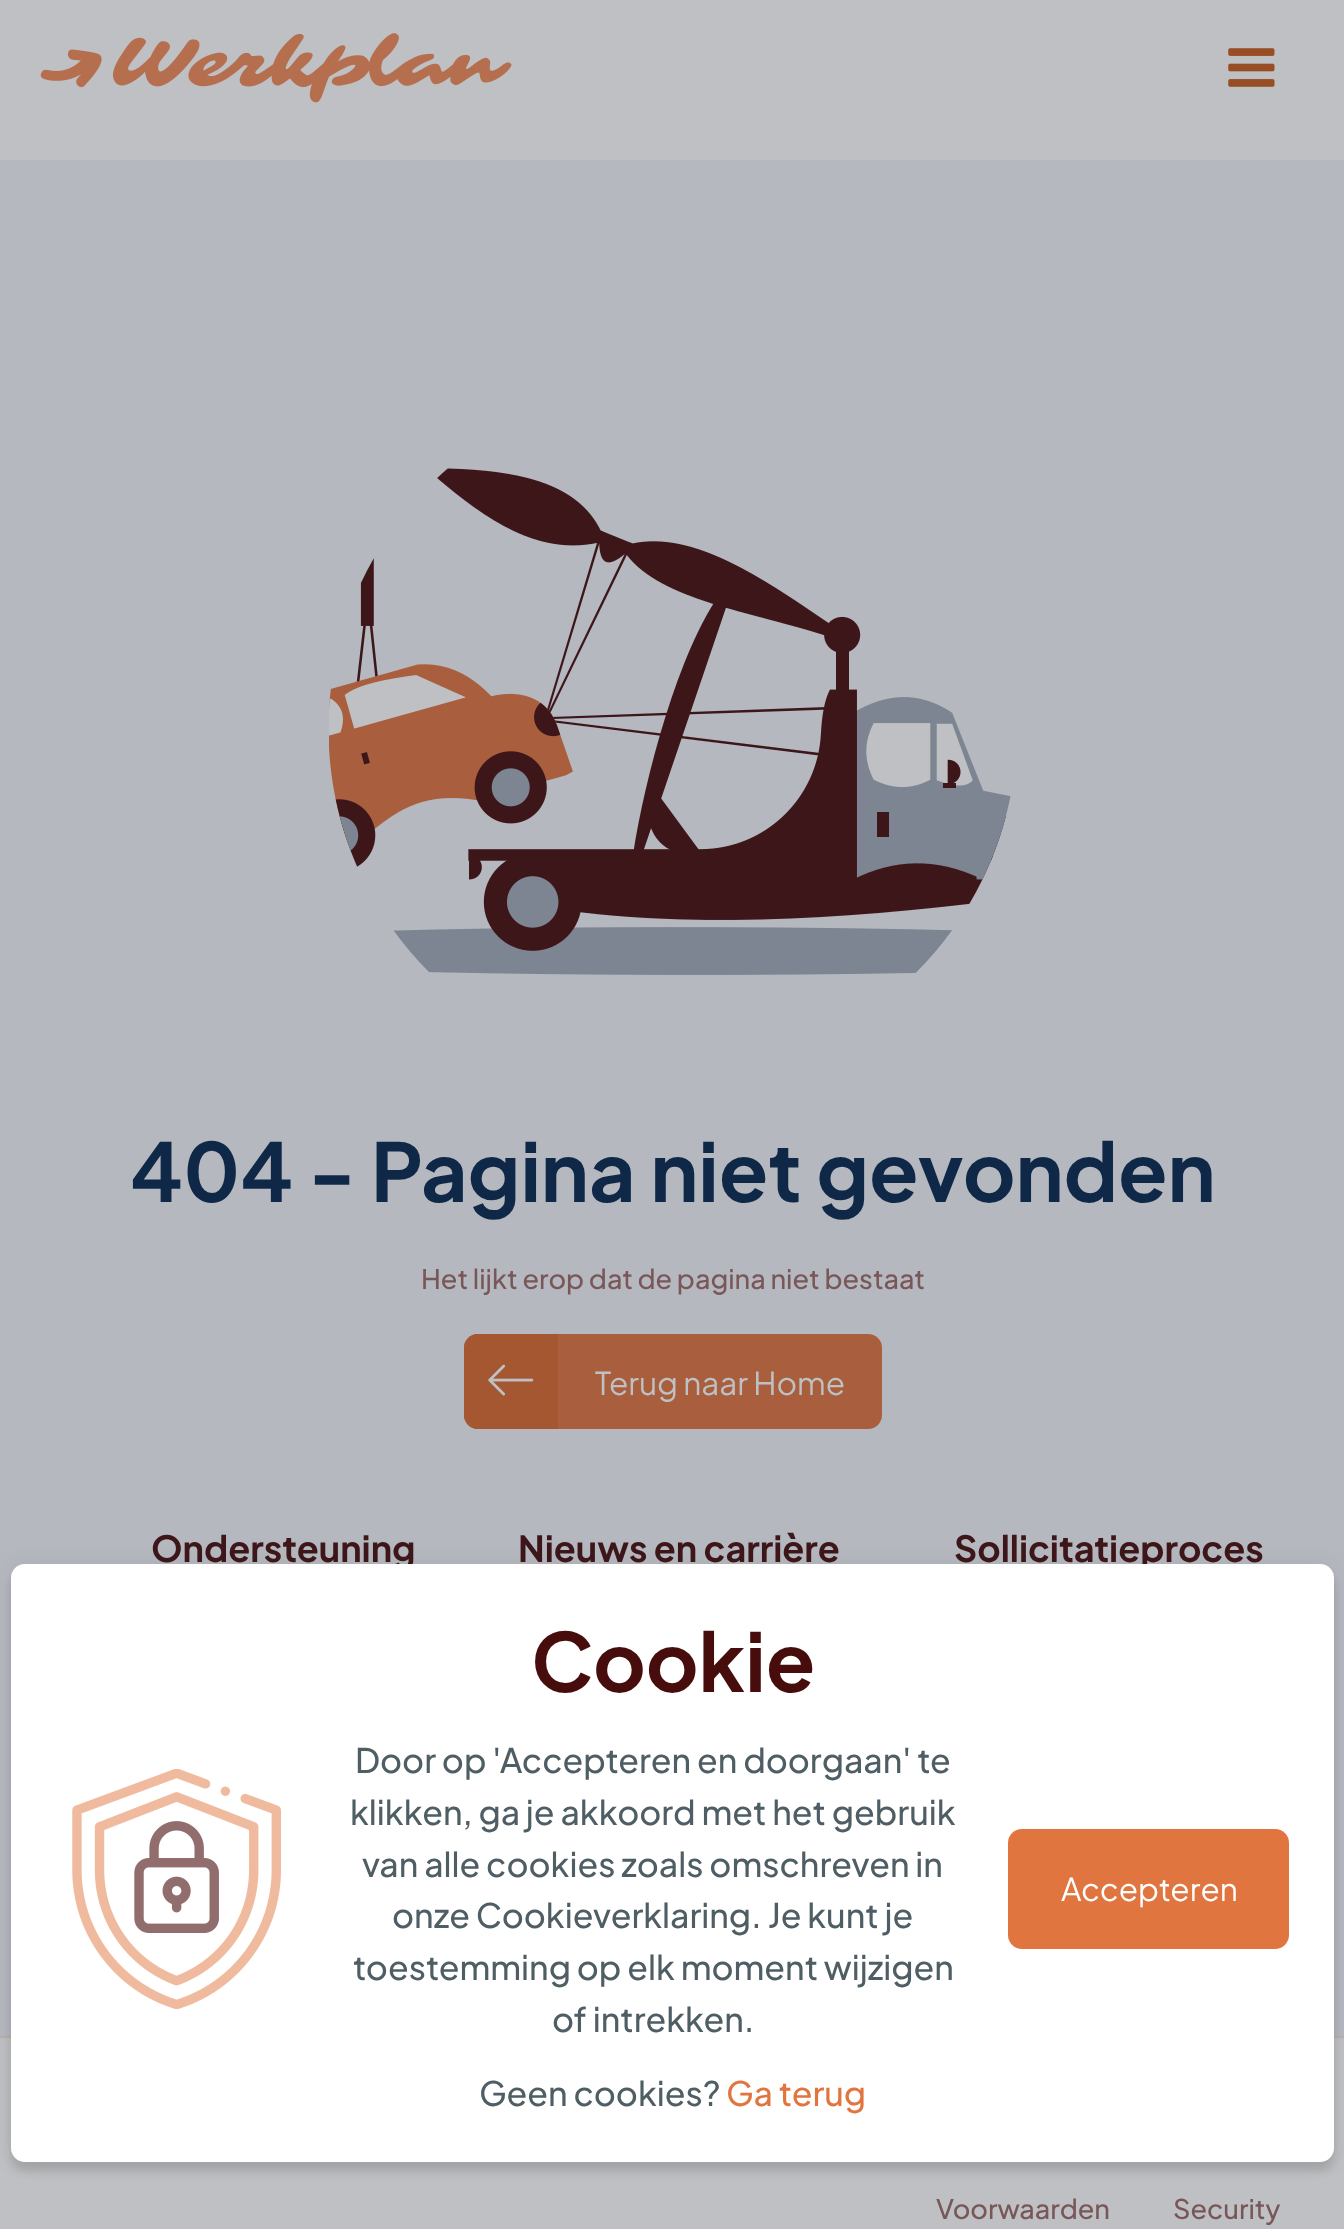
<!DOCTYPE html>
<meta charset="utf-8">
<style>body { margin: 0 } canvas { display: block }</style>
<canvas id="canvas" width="1344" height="2229"></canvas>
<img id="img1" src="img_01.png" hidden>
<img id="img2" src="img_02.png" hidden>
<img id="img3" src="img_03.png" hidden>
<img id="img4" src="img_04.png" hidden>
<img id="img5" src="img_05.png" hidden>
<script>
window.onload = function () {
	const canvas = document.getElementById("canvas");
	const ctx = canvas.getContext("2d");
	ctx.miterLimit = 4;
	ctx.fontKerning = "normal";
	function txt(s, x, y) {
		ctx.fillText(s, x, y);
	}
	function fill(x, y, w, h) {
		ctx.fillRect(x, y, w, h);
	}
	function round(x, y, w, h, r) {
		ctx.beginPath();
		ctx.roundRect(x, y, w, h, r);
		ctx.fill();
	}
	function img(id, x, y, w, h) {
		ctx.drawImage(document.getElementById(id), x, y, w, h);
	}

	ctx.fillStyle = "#BEC0C3";
	fill(0, 0, 1344, 2229);
	img("img1", 40, 33, 472, 70);
	img("img2", 1228, 48, 47, 39);
	ctx.fillStyle = "#B5B8BF";
	fill(0, 160, 1344, 1876);
	img("img3", 329, 468, 682, 507);
	ctx.fillStyle = "#A95F3D";
	round(464, 1334, 418, 95, 14);
	ctx.fillStyle = "#A45730";
	ctx.beginPath();
	ctx.roundRect(464, 1334, 94, 95, [14, 0, 0, 14]);
	ctx.fill();
	img("img4", 488, 1364, 46, 32);
	ctx.fillStyle = "#BEADA8";
	fill(0, 2036, 1344, 2);
	ctx.fillStyle = "rgba(0, 0, 0, 0.06)";
	ctx.filter = "blur(11px)";
	ctx.beginPath();
	ctx.roundRect(11, 1564, 1323, 598, 14);
	ctx.fill();
	ctx.filter = "none";
	ctx.fillStyle = "rgba(0, 0, 0, 0.12)";
	ctx.filter = "blur(4.5px)";
	ctx.beginPath();
	ctx.roundRect(11, 1573, 1323, 598, 14);
	ctx.fill();
	ctx.filter = "none";
	ctx.font = "bold 81px Plus Jakarta Sans";
	ctx.fillStyle = "#0F2847";
	txt("404 - Pagina niet gevonden", 130, 1202);
	ctx.font = "500 27px Plus Jakarta Sans";
	ctx.fillStyle = "#795758";
	txt("Het lijkt erop dat de pagina niet bestaat", 421, 1289);
	ctx.font = "31.5px Plus Jakarta Sans";
	ctx.fillStyle = "#BEC0C3";
	txt("Terug naar Home", 595, 1395);
	ctx.font = "bold 36px Plus Jakarta Sans";
	ctx.fillStyle = "#3D1619";
	txt("Ondersteuning", 151, 1562);
	txt("Nieuws en carrière", 518, 1562);
	txt("Sollicitatieproces", 954, 1562);
	ctx.font = "500 27px Plus Jakarta Sans";
	ctx.fillStyle = "#795758";
	txt("Voorwaarden", 936, 2219);
	txt("Security", 1173, 2219);
	ctx.fillStyle = "#FFFFFF";
	round(11, 1564, 1323, 598, 14);
	ctx.font = "bold 81px Plus Jakarta Sans";
	ctx.fillStyle = "#470C0C";
	txt("Cookie", 531, 1692);
	img("img5", 72, 1769, 209, 240);
	ctx.font = "500 33.75px Plus Jakarta Sans";
	ctx.fillStyle = "#4F5E64";
	txt("Door op 'Accepteren en doorgaan' te", 355, 1773);
	txt("klikken, ga je akkoord met het gebruik", 350, 1825);
	txt("van alle cookies zoals omschreven in", 362, 1877);
	txt("onze Cookieverklaring. Je kunt je", 392, 1928);
	txt("toestemming op elk moment wijzigen", 353, 1980);
	txt("of intrekken.", 552, 2032);
	ctx.fillStyle = "#E17540";
	round(1008, 1829, 281, 120, 14);
	ctx.font = "31.5px Plus Jakarta Sans";
	ctx.fillStyle = "#FFFFFF";
	txt("Accepteren", 1061, 1901);
	ctx.font = "500 33.75px Plus Jakarta Sans";
	ctx.fillStyle = "#4F5E64";
	txt("Geen cookies?", 479, 2106);
	ctx.fillStyle = "#E17540";
	txt("Ga terug", 726, 2106);
};
</script>
